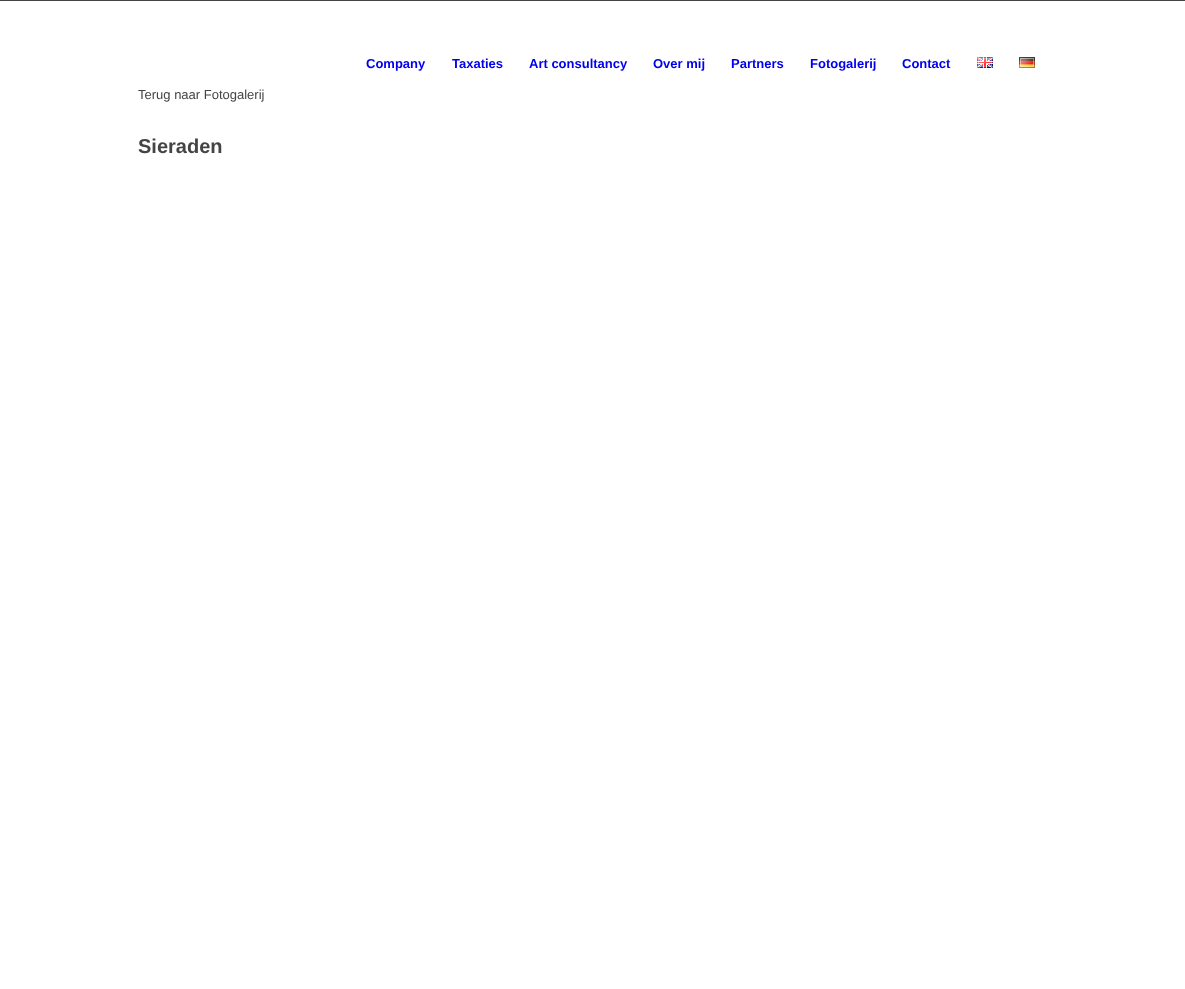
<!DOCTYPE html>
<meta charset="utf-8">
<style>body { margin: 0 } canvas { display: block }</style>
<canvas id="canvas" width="1185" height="989"></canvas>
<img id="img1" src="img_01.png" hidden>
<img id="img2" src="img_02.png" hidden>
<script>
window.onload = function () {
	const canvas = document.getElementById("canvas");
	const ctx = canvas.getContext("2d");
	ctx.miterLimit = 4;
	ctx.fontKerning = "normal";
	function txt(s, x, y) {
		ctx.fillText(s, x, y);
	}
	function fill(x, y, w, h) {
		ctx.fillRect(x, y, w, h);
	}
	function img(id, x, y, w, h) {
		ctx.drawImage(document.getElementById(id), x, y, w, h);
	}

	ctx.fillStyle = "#FFFFFF";
	fill(0, 0, 1185, 989);
	img("img1", 977, 57, 16, 11);
	img("img2", 1019, 57, 16, 11);
	ctx.fillStyle = "#444444";
	fill(0, 0, 1185, 1);
	ctx.font = "bold 13px Liberation Sans";
	ctx.fillStyle = "#0000EE";
	txt("Company", 366, 68);
	txt("Taxaties", 452, 68);
	txt("Art consultancy", 529, 68);
	txt("Over mij", 653, 68);
	txt("Partners", 731, 68);
	txt("Fotogalerij", 810, 68);
	txt("Contact", 902, 68);
	ctx.font = "13px Liberation Sans";
	ctx.fillStyle = "#444444";
	txt("Terug naar Fotogalerij", 138, 99);
	ctx.font = "bold 20px Liberation Sans";
	txt("Sieraden", 138, 153);
};
</script>
